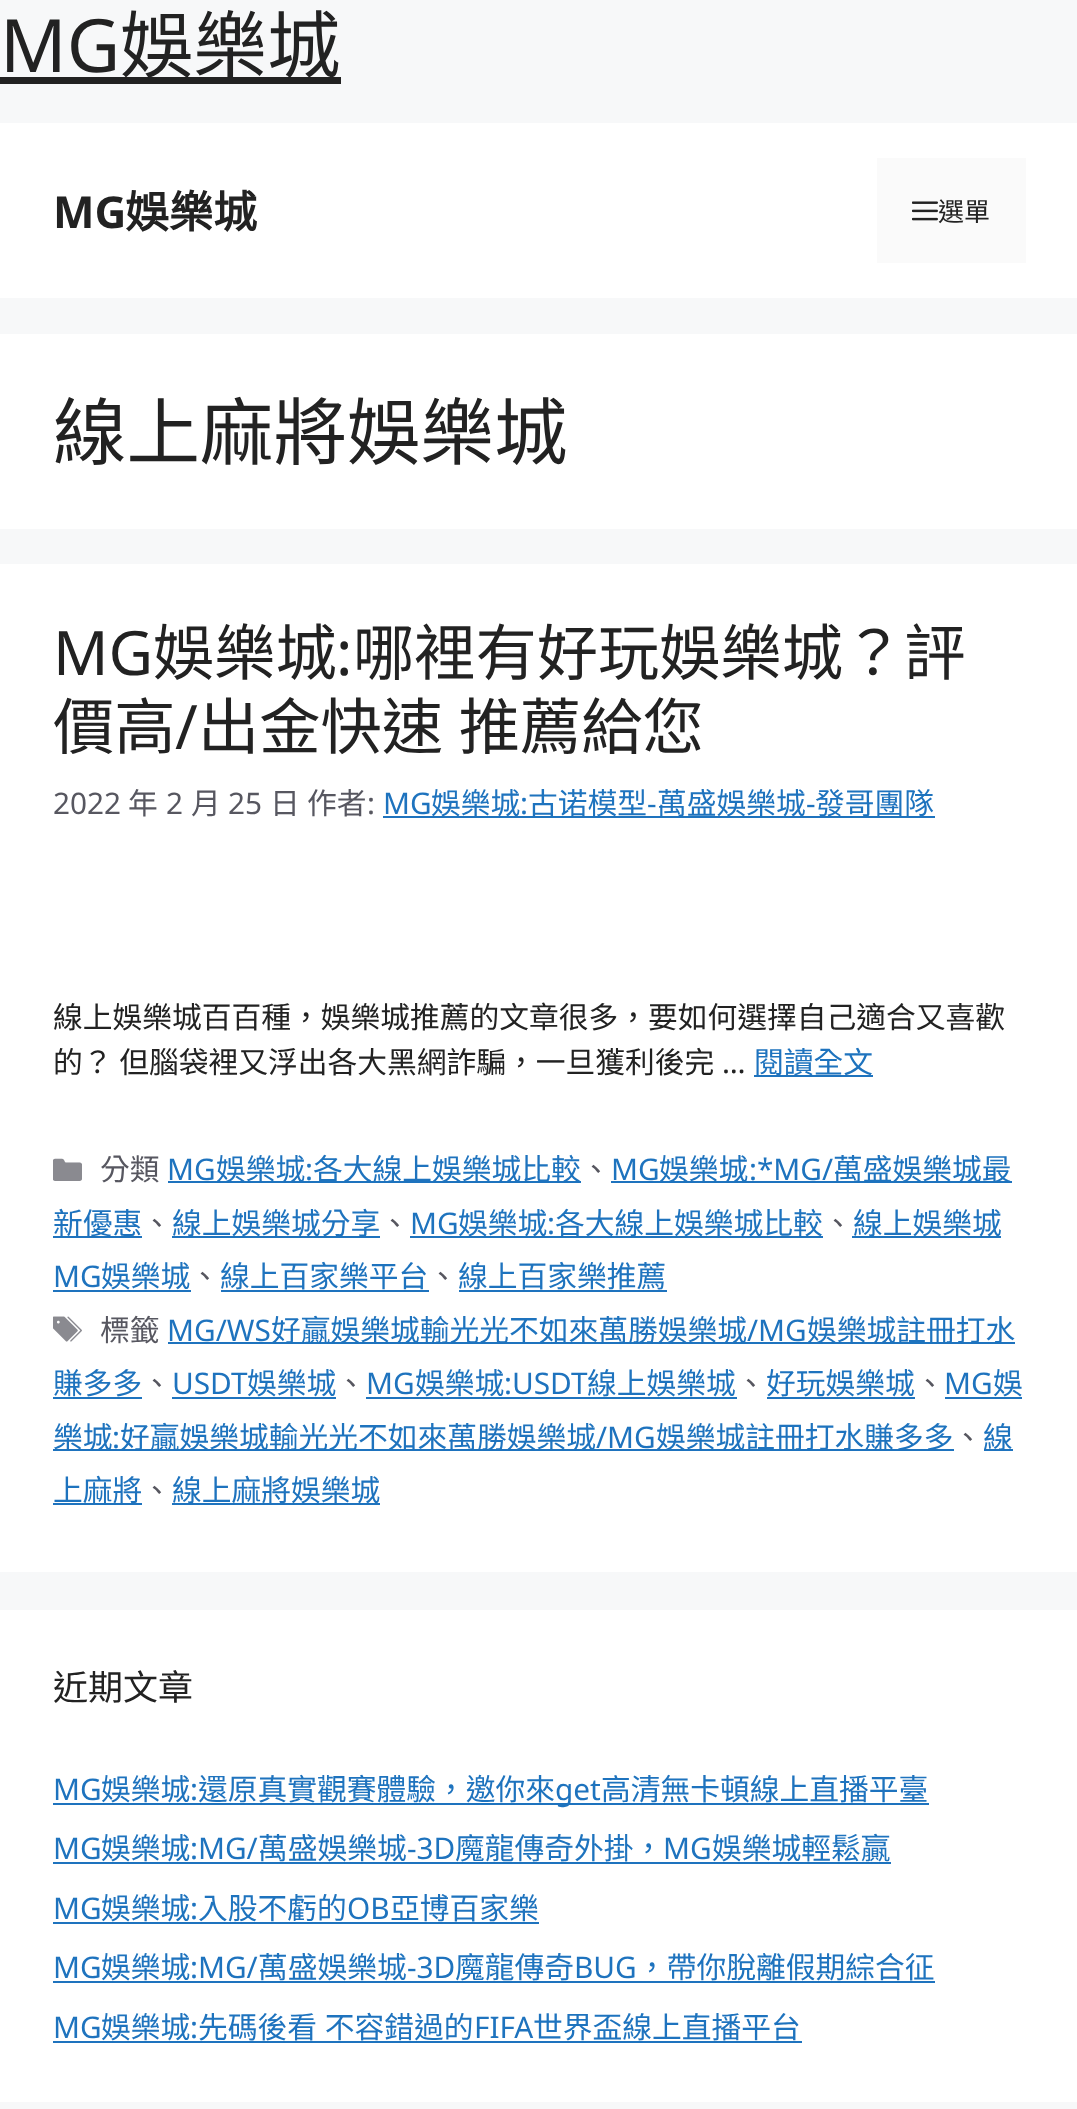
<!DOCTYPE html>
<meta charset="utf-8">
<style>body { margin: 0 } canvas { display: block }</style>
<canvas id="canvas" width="1077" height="2109"></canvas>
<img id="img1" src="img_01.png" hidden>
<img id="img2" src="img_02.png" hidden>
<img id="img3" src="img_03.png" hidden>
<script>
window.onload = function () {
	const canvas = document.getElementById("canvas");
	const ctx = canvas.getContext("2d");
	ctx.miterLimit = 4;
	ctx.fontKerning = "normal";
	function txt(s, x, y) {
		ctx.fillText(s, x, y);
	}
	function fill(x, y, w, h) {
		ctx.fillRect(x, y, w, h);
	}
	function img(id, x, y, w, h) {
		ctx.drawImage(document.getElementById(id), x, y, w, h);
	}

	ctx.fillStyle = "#F7F8F9";
	fill(0, 0, 1077, 2109);
	ctx.fillStyle = "#222222";
	fill(0, 77, 341, 7);
	ctx.fillStyle = "#FFFFFF";
	fill(0, 123, 1077, 175);
	ctx.fillStyle = "#FAFAFA";
	fill(877, 158, 149, 105);
	img("img1", 912, 201, 26, 20);
	ctx.fillStyle = "#FFFFFF";
	fill(0, 334, 1077, 195);
	fill(0, 564, 1077, 1008);
	ctx.fillStyle = "#1E73BE";
	fill(383, 816, 552, 2);
	fill(754, 1075, 119, 2);
	img("img2", 53, 1158, 29, 23);
	fill(168, 1181, 413, 2);
	fill(611, 1181, 401, 2);
	fill(53, 1236, 89, 2);
	fill(172, 1236, 208, 2);
	fill(410, 1236, 413, 2);
	fill(852, 1236, 149, 2);
	fill(53, 1290, 138, 2);
	fill(221, 1290, 208, 2);
	fill(459, 1290, 208, 2);
	img("img3", 53, 1316, 29, 26);
	fill(168, 1342, 847, 2);
	fill(53, 1397, 89, 2);
	fill(172, 1397, 164, 2);
	fill(366, 1397, 371, 2);
	fill(767, 1397, 148, 2);
	fill(945, 1397, 77, 2);
	fill(53, 1449, 901, 2);
	fill(984, 1449, 29, 2);
	fill(53, 1503, 89, 2);
	fill(172, 1503, 208, 2);
	ctx.fillStyle = "#FFFFFF";
	fill(0, 1610, 1077, 492);
	ctx.fillStyle = "#1E73BE";
	fill(53, 1803, 876, 2);
	fill(53, 1862, 838, 2);
	fill(53, 1922, 486, 2);
	fill(53, 1981, 882, 2);
	fill(53, 2041, 749, 2);
	ctx.font = "73.5px Noto Sans";
	ctx.fillStyle = "#222222";
	txt("MG", 0, 72);
	ctx.font = "73.5px Noto Sans CJK TC";
	txt("娛樂城", 120, 72);
	ctx.font = "bold 44px Noto Sans";
	txt("MG", 53, 228);
	ctx.font = "bold 44px Noto Sans CJK TC";
	txt("娛樂城", 125, 228);
	ctx.font = "26px Noto Sans CJK TC";
	txt("選單", 938, 221);
	ctx.font = "73.5px Noto Sans CJK TC";
	txt("線上麻將娛樂城", 53, 459);
	ctx.font = "61.25px Noto Sans";
	txt("MG", 53, 675);
	ctx.font = "61.25px Noto Sans CJK TC";
	txt("娛樂城", 153, 675);
	ctx.font = "61.25px Noto Sans";
	txt(":", 336, 675);
	ctx.font = "61.25px Noto Sans CJK TC";
	txt("哪裡有好玩娛樂城？評", 353, 675);
	txt("價高", 53, 749);
	ctx.font = "61.25px Noto Sans";
	txt("/", 175, 749);
	ctx.wordSpacing = "2px";
	ctx.font = "61.25px Noto Sans CJK TC";
	txt("出金快速 推薦給您", 198, 749);
	ctx.wordSpacing = "0px";
	ctx.font = "29.75px Noto Sans";
	ctx.fillStyle = "#575760";
	txt("2022", 53, 814);
	ctx.font = "29.75px Noto Sans CJK TC";
	txt("年", 128, 814);
	ctx.font = "29.75px Noto Sans";
	txt("2", 166, 814);
	ctx.font = "29.75px Noto Sans CJK TC";
	txt("月", 191, 814);
	ctx.font = "29.75px Noto Sans";
	txt("25", 228, 814);
	ctx.font = "29.75px Noto Sans CJK TC";
	txt("日", 270, 814);
	txt("作者", 307, 814);
	ctx.font = "29.75px Noto Sans";
	txt(":", 367, 814);
	ctx.fillStyle = "#1E73BE";
	txt("MG", 383, 814);
	ctx.font = "29.75px Noto Sans CJK TC";
	txt("娛樂城", 431, 814);
	ctx.font = "29.75px Noto Sans";
	txt(":", 520, 814);
	ctx.font = "29.75px Noto Sans CJK TC";
	txt("古诺模型", 528, 814);
	ctx.font = "29.75px Noto Sans";
	txt("-", 647, 814);
	ctx.font = "29.75px Noto Sans CJK TC";
	txt("萬盛娛樂城", 657, 814);
	ctx.font = "29.75px Noto Sans";
	txt("-", 806, 814);
	ctx.font = "29.75px Noto Sans CJK TC";
	txt("發哥團隊", 815, 814);
	ctx.fillStyle = "#222222";
	txt("線上娛樂城百百種，娛樂城推薦的文章很多，要如何選擇自己適合又喜歡", 53, 1028);
	txt("的？ 但腦袋裡又浮出各大黑網詐騙，一旦獲利後完", 53, 1073);
	ctx.font = "29.75px Noto Sans";
	txt("…", 722, 1073);
	ctx.font = "29.75px Noto Sans CJK TC";
	ctx.fillStyle = "#1E73BE";
	txt("閱讀全文", 754, 1073);
	ctx.fillStyle = "#575760";
	txt("分類", 100, 1180);
	ctx.font = "29.75px Noto Sans";
	ctx.fillStyle = "#1E73BE";
	txt("MG", 167, 1180);
	ctx.font = "29.75px Noto Sans CJK TC";
	txt("娛樂城", 216, 1180);
	ctx.font = "29.75px Noto Sans";
	txt(":", 305, 1180);
	ctx.font = "29.75px Noto Sans CJK TC";
	txt("各大線上娛樂城比較", 313, 1180);
	ctx.fillStyle = "#575760";
	txt("、", 581, 1180);
	ctx.font = "29.75px Noto Sans";
	ctx.fillStyle = "#1E73BE";
	txt("MG", 611, 1180);
	ctx.font = "29.75px Noto Sans CJK TC";
	txt("娛樂城", 659, 1180);
	ctx.font = "29.75px Noto Sans";
	txt(":*MG/", 749, 1180);
	ctx.font = "29.75px Noto Sans CJK TC";
	txt("萬盛娛樂城最", 833, 1180);
	txt("新優惠", 53, 1234);
	ctx.fillStyle = "#575760";
	txt("、", 142, 1234);
	ctx.fillStyle = "#1E73BE";
	txt("線上娛樂城分享", 172, 1234);
	ctx.fillStyle = "#575760";
	txt("、", 380, 1234);
	ctx.font = "29.75px Noto Sans";
	ctx.fillStyle = "#1E73BE";
	txt("MG", 410, 1234);
	ctx.font = "29.75px Noto Sans CJK TC";
	txt("娛樂城", 458, 1234);
	ctx.font = "29.75px Noto Sans";
	txt(":", 547, 1234);
	ctx.font = "29.75px Noto Sans CJK TC";
	txt("各大線上娛樂城比較", 555, 1234);
	ctx.fillStyle = "#575760";
	txt("、", 823, 1234);
	ctx.fillStyle = "#1E73BE";
	txt("線上娛樂城", 853, 1234);
	ctx.font = "29.75px Noto Sans";
	txt("MG", 53, 1287);
	ctx.font = "29.75px Noto Sans CJK TC";
	txt("娛樂城", 101, 1287);
	ctx.fillStyle = "#575760";
	txt("、", 190, 1287);
	ctx.fillStyle = "#1E73BE";
	txt("線上百家樂平台", 220, 1287);
	ctx.fillStyle = "#575760";
	txt("、", 428, 1287);
	ctx.fillStyle = "#1E73BE";
	txt("線上百家樂推薦", 458, 1287);
	ctx.fillStyle = "#575760";
	txt("標籤", 100, 1341);
	ctx.font = "29.75px Noto Sans";
	ctx.fillStyle = "#1E73BE";
	txt("MG/WS", 167, 1341);
	ctx.font = "29.75px Noto Sans CJK TC";
	txt("好贏娛樂城輸光光不如來萬勝娛樂城", 271, 1341);
	ctx.font = "29.75px Noto Sans";
	txt("/MG", 747, 1341);
	ctx.font = "29.75px Noto Sans CJK TC";
	txt("娛樂城註冊打水", 807, 1341);
	txt("賺多多", 53, 1394);
	ctx.fillStyle = "#575760";
	txt("、", 142, 1394);
	ctx.font = "29.75px Noto Sans";
	ctx.fillStyle = "#1E73BE";
	txt("USDT", 172, 1394);
	ctx.font = "29.75px Noto Sans CJK TC";
	txt("娛樂城", 247, 1394);
	ctx.fillStyle = "#575760";
	txt("、", 336, 1394);
	ctx.font = "29.75px Noto Sans";
	ctx.fillStyle = "#1E73BE";
	txt("MG", 366, 1394);
	ctx.font = "29.75px Noto Sans CJK TC";
	txt("娛樂城", 415, 1394);
	ctx.font = "29.75px Noto Sans";
	txt(":USDT", 504, 1394);
	ctx.font = "29.75px Noto Sans CJK TC";
	txt("線上娛樂城", 587, 1394);
	ctx.fillStyle = "#575760";
	txt("、", 736, 1394);
	ctx.fillStyle = "#1E73BE";
	txt("好玩娛樂城", 766, 1394);
	ctx.fillStyle = "#575760";
	txt("、", 915, 1394);
	ctx.font = "29.75px Noto Sans";
	ctx.fillStyle = "#1E73BE";
	txt("MG", 944, 1394);
	ctx.font = "29.75px Noto Sans CJK TC";
	txt("娛", 993, 1394);
	txt("樂城", 53, 1448);
	ctx.font = "29.75px Noto Sans";
	txt(":", 112, 1448);
	ctx.font = "29.75px Noto Sans CJK TC";
	txt("好贏娛樂城輸光光不如來萬勝娛樂城", 120, 1448);
	ctx.font = "29.75px Noto Sans";
	txt("/MG", 596, 1448);
	ctx.font = "29.75px Noto Sans CJK TC";
	txt("娛樂城註冊打水賺多多", 656, 1448);
	ctx.fillStyle = "#575760";
	txt("、", 953, 1448);
	ctx.fillStyle = "#1E73BE";
	txt("線", 983, 1448);
	txt("上麻將", 53, 1501);
	ctx.fillStyle = "#575760";
	txt("、", 142, 1501);
	ctx.fillStyle = "#1E73BE";
	txt("線上麻將娛樂城", 172, 1501);
	ctx.font = "35px Noto Sans CJK TC";
	ctx.fillStyle = "#222222";
	txt("近期文章", 53, 1700);
	ctx.font = "29.75px Noto Sans";
	ctx.fillStyle = "#1E73BE";
	txt("MG", 53, 1800);
	ctx.font = "29.75px Noto Sans CJK TC";
	txt("娛樂城", 101, 1800);
	ctx.font = "29.75px Noto Sans";
	txt(":", 190, 1800);
	ctx.font = "29.75px Noto Sans CJK TC";
	txt("還原真實觀賽體驗，邀你來", 198, 1800);
	ctx.font = "29.75px Noto Sans";
	txt("get", 555, 1800);
	ctx.font = "29.75px Noto Sans CJK TC";
	txt("高清無卡頓線上直播平臺", 601, 1800);
	ctx.font = "29.75px Noto Sans";
	txt("MG", 53, 1859);
	ctx.font = "29.75px Noto Sans CJK TC";
	txt("娛樂城", 101, 1859);
	ctx.font = "29.75px Noto Sans";
	txt(":MG/", 190, 1859);
	ctx.font = "29.75px Noto Sans CJK TC";
	txt("萬盛娛樂城", 258, 1859);
	ctx.font = "29.75px Noto Sans";
	txt("-3D", 407, 1859);
	ctx.font = "29.75px Noto Sans CJK TC";
	txt("魔龍傳奇外掛，", 455, 1859);
	ctx.font = "29.75px Noto Sans";
	txt("MG", 663, 1859);
	ctx.font = "29.75px Noto Sans CJK TC";
	txt("娛樂城輕鬆贏", 712, 1859);
	ctx.font = "29.75px Noto Sans";
	txt("MG", 53, 1919);
	ctx.font = "29.75px Noto Sans CJK TC";
	txt("娛樂城", 101, 1919);
	ctx.font = "29.75px Noto Sans";
	txt(":", 190, 1919);
	ctx.font = "29.75px Noto Sans CJK TC";
	txt("入股不虧的", 198, 1919);
	ctx.font = "29.75px Noto Sans";
	txt("OB", 347, 1919);
	ctx.font = "29.75px Noto Sans CJK TC";
	txt("亞博百家樂", 390, 1919);
	ctx.font = "29.75px Noto Sans";
	txt("MG", 53, 1978);
	ctx.font = "29.75px Noto Sans CJK TC";
	txt("娛樂城", 101, 1978);
	ctx.font = "29.75px Noto Sans";
	txt(":MG/", 190, 1978);
	ctx.font = "29.75px Noto Sans CJK TC";
	txt("萬盛娛樂城", 258, 1978);
	ctx.font = "29.75px Noto Sans";
	txt("-3D", 407, 1978);
	ctx.font = "29.75px Noto Sans CJK TC";
	txt("魔龍傳奇", 455, 1978);
	ctx.font = "29.75px Noto Sans";
	txt("BUG", 574, 1978);
	ctx.font = "29.75px Noto Sans CJK TC";
	txt("，帶你脫離假期綜合征", 637, 1978);
	ctx.font = "29.75px Noto Sans";
	txt("MG", 53, 2038);
	ctx.font = "29.75px Noto Sans CJK TC";
	txt("娛樂城", 101, 2038);
	ctx.font = "29.75px Noto Sans";
	txt(":", 190, 2038);
	ctx.wordSpacing = "1px";
	ctx.font = "29.75px Noto Sans CJK TC";
	txt("先碼後看 不容錯過的", 198, 2038);
	ctx.wordSpacing = "0px";
	ctx.font = "29.75px Noto Sans";
	txt("FIFA", 474, 2038);
	ctx.font = "29.75px Noto Sans CJK TC";
	txt("世界盃線上直播平台", 533, 2038);
};
</script>
